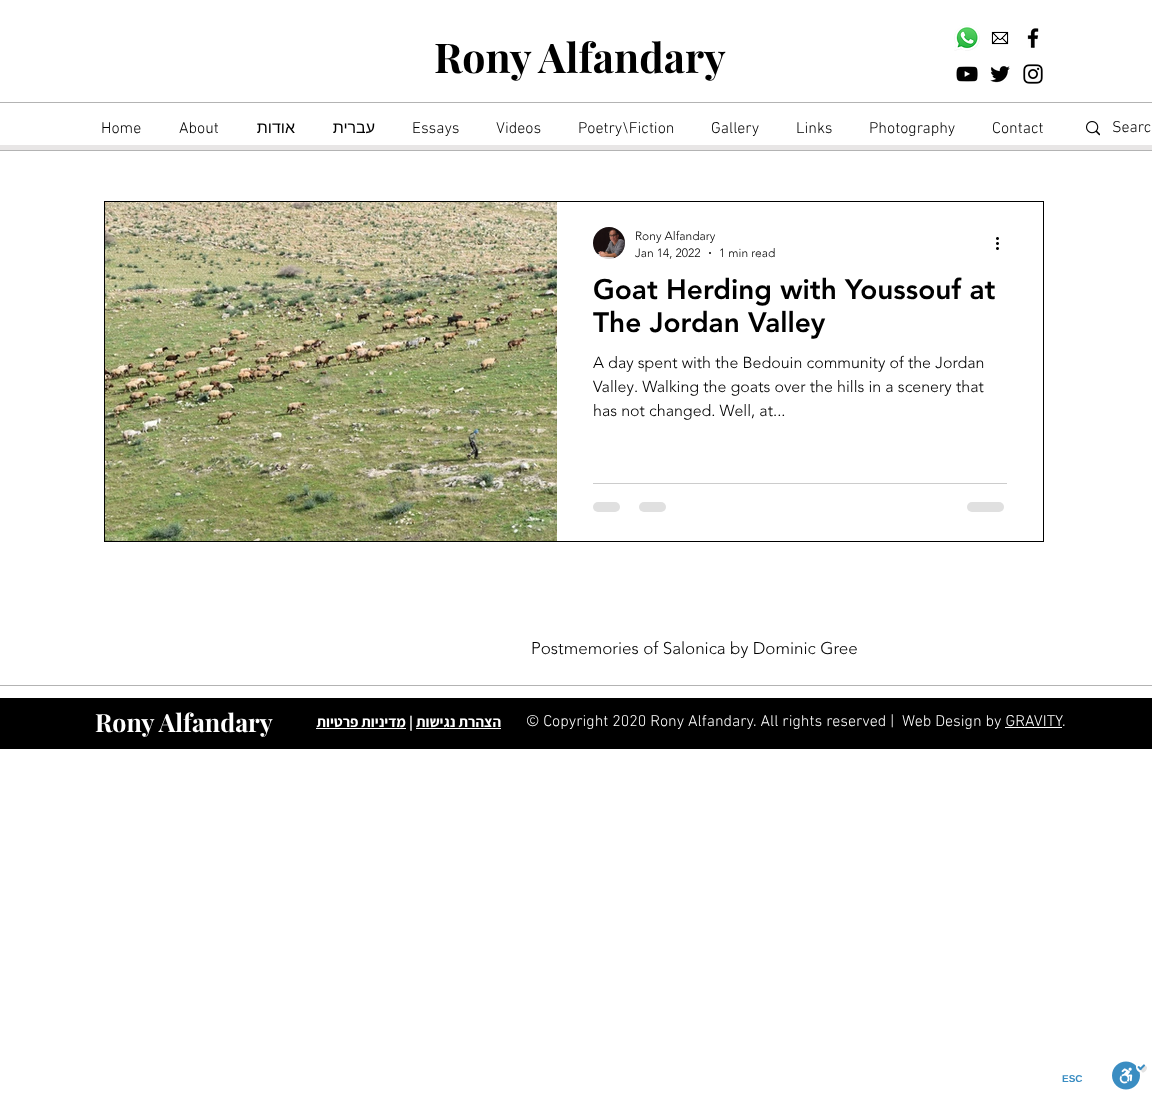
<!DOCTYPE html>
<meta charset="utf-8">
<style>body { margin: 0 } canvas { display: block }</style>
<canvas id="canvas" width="1152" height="1093"></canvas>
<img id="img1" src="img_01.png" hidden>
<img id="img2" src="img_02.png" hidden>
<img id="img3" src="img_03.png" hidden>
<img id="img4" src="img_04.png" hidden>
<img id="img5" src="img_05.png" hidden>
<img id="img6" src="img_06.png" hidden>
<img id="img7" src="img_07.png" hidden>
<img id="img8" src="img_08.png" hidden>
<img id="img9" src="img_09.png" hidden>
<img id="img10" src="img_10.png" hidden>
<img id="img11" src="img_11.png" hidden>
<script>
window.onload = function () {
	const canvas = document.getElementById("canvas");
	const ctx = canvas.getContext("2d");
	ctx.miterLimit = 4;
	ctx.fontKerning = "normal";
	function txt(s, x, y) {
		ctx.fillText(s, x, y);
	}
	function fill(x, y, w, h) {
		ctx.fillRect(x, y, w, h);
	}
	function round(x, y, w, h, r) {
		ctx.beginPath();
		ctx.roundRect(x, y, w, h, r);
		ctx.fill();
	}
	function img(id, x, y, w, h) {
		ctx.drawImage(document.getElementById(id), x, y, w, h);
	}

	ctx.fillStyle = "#FFFFFF";
	fill(0, 0, 1152, 1093);
	img("img1", 954, 25, 26, 26);
	img("img2", 991, 31, 18, 14);
	img("img3", 1027, 28, 12, 20);
	img("img4", 956, 66, 22, 16);
	img("img5", 990, 66, 20, 17);
	img("img6", 1023, 64, 20, 20);
	ctx.fillStyle = "#B3B3B3";
	fill(0, 102, 1152, 1);
	img("img7", 1086, 121, 14, 15);
	ctx.fillStyle = "#E8E6E6";
	fill(0, 145, 1152, 5);
	ctx.fillStyle = "#B3B3B3";
	fill(0, 150, 1152, 1);
	ctx.strokeStyle = "#000000";
	ctx.strokeRect(104.5, 201.5, 939, 340);
	img("img8", 105, 202, 452, 339);
	img("img9", 593, 227, 32, 32);
	ctx.fillStyle = "#000000";
	ctx.beginPath();
	ctx.arc(710, 253, 1, 0, Math.PI * 2);
	ctx.fill();
	img("img10", 996, 237, 3, 13);
	ctx.fillStyle = "#CCCCCC";
	fill(593, 483, 414, 1);
	ctx.fillStyle = "#E0E0E0";
	round(593, 502, 27, 10, 5);
	round(639, 502, 27, 10, 5);
	round(967, 502, 37, 10, 5);
	ctx.fillStyle = "#B3B3B3";
	fill(0, 685, 1152, 1);
	ctx.fillStyle = "#000000";
	fill(0, 698, 1152, 51);
	ctx.fillStyle = "#FFFFFF";
	fill(1005, 727, 57, 1);
	fill(316, 728, 90, 1);
	fill(416, 728, 85, 1);
	img("img11", 1112, 1061, 35, 29);
	ctx.font = "bold 41px Playfair Display";
	ctx.fillStyle = "#000000";
	txt("Rony Alfandary", 434, 73);
	ctx.font = "300 16px 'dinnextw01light'";
	txt("Home", 101, 133);
	txt("About", 179, 133);
	ctx.direction = "rtl";
	ctx.font = "16px Liberation Sans";
	txt("אודות", 295, 133);
	txt("עברית", 375, 133);
	ctx.direction = "ltr";
	ctx.font = "300 16px 'dinnextw01light'";
	txt("Essays", 412, 133);
	txt("Videos", 496, 133);
	txt("Poetry\\Fiction", 578, 133);
	txt("Gallery", 711, 133);
	txt("Links", 796, 133);
	txt("Photography", 869, 133);
	txt("Contact", 992, 133);
	txt("Searc", 1112, 132);
	ctx.font = "300 12px 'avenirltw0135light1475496'";
	txt("Rony Alfandary", 635, 240);
	txt("Jan 14, 2022", 635, 257);
	txt("1 min read", 719, 257);
	ctx.font = "900 28px 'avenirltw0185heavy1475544'";
	txt("Goat Herding with Youssouf at", 593, 299);
	txt("The Jordan Valley", 593, 332);
	ctx.font = "300 16px 'avenirltw0135light1475496'";
	txt("A day spent with the Bedouin community of the Jordan", 593, 368);
	txt("Valley. Walking the goats over the hills in a scenery that", 593, 392);
	txt("has not changed. Well, at...", 593, 416);
	ctx.font = "300 17px 'avenirltw0135light1475496'";
	txt("Postmemories of Salonica by Dominic Gree", 531, 654);
	ctx.font = "bold 25px Playfair Display";
	ctx.fillStyle = "#FFFFFF";
	txt("Rony Alfandary", 95, 732);
	ctx.font = "300 16px 'dinnextw01light'";
	txt("© Copyright 2020 Rony Alfandary. All rights reserved |", 526, 726);
	txt("Web Design by GRAVITY", 902, 726);
	txt(".", 1062, 726);
	ctx.direction = "rtl";
	ctx.font = "bold 15px Assistant";
	txt("מדיניות פרטיות", 406, 727);
	ctx.direction = "ltr";
	txt("|", 409, 727);
	ctx.direction = "rtl";
	txt("הצהרת נגישות", 501, 727);
	ctx.direction = "ltr";
	ctx.font = "bold 10px Liberation Sans";
	ctx.fillStyle = "#3A8DC2";
	txt("ESC", 1062, 1082);
};
</script>
